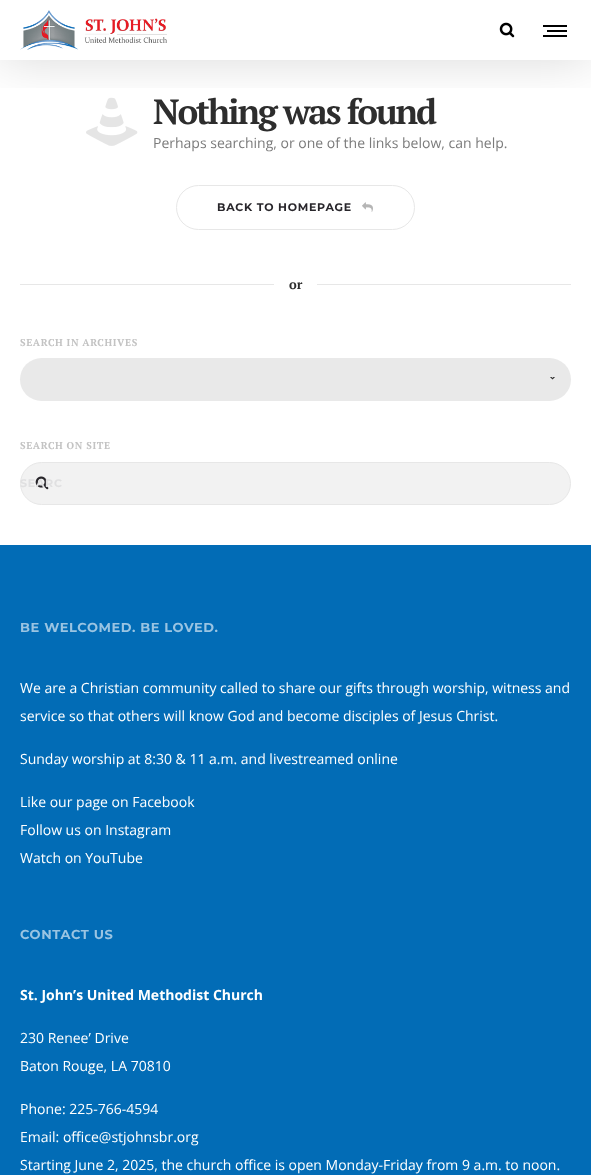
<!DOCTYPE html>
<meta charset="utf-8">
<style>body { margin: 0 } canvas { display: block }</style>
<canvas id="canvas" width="591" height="1175"></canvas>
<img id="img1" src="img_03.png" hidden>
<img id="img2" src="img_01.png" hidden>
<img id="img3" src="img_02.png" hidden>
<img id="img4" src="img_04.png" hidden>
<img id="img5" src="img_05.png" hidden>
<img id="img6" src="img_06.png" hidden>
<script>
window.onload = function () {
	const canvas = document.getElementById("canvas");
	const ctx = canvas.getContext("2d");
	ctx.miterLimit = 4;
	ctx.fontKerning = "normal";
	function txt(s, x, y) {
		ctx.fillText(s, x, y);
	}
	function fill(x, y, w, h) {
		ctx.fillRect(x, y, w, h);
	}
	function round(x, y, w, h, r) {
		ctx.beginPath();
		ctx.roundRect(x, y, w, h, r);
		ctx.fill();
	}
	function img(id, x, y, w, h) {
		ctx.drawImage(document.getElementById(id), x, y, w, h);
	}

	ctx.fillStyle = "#FFFFFF";
	fill(0, 0, 591, 1175);
	img("img1", 86, 97, 52, 49);
	ctx.save();
	ctx.beginPath();
	ctx.rect(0, 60, 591, 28);
	ctx.clip();
	ctx.fillStyle = "rgba(0, 0, 0, 0.15)";
	ctx.filter = "blur(25px)";
	ctx.beginPath();
	ctx.rect(0, 0, 591, 60);
	ctx.fill();
	ctx.filter = "none";
	ctx.restore();
	img("img2", 20, 10, 147, 40);
	img("img3", 499, 22, 16, 16);
	ctx.fillStyle = "#000000";
	fill(543, 25, 24, 2);
	fill(547, 30, 20, 2);
	fill(543, 35, 24, 2);
	ctx.beginPath();
	ctx.roundRect(176.5, 185.5, 238, 44, 22);
	ctx.strokeStyle = "#E7E7E7";
	ctx.stroke();
	img("img4", 362, 202, 11, 10);
	ctx.fillStyle = "#E7E7E7";
	fill(20, 284, 254, 1);
	fill(317, 284, 254, 1);
	ctx.fillStyle = "#E9E9E9";
	round(20, 358, 551, 43, 21.5);
	img("img5", 550, 377, 5, 3);
	ctx.fillStyle = "#F2F2F2";
	ctx.beginPath();
	ctx.roundRect(20.5, 462.5, 550, 42, 21);
	ctx.fill();
	ctx.stroke();
	img("img6", 35, 476, 14, 14);
	ctx.fillStyle = "#026CB6";
	fill(0, 545, 591, 630);
	ctx.letterSpacing = "-2.1px";
	ctx.font = "bold 35px PT Serif";
	ctx.fillStyle = "#2D2D2D";
	txt("Nothing was found", 153, 124);
	ctx.letterSpacing = "0px";
	ctx.font = "14px Open Sans";
	ctx.fillStyle = "#7B7B7B";
	txt("Perhaps searching, or one of the links below, can help.", 153, 148);
	ctx.letterSpacing = "0.75px";
	ctx.font = "bold 11px Montserrat";
	ctx.fillStyle = "#28262B";
	txt("BACK TO HOMEPAGE", 217, 211);
	ctx.letterSpacing = "0px";
	ctx.font = "bold 13px PT Serif";
	ctx.fillStyle = "#2D2D2D";
	txt("or", 289, 289);
	ctx.letterSpacing = "0.6px";
	ctx.font = "bold 10px PT Serif";
	ctx.fillStyle = "#C3C3C3";
	txt("SEARCH IN ARCHIVES", 20, 346);
	txt("SEARCH ON SITE", 20, 449);
	ctx.letterSpacing = "0.75px";
	ctx.font = "bold 11px Montserrat";
	ctx.fillStyle = "#E0E0E1";
	txt("SEARC", 20, 487);
	ctx.letterSpacing = "0.6px";
	ctx.font = "bold 13px Montserrat";
	ctx.fillStyle = "#9AC4E2";
	txt("BE WELCOMED. BE LOVED.", 20, 632);
	ctx.letterSpacing = "0px";
	ctx.font = "14px Open Sans";
	ctx.fillStyle = "#FFFFFF";
	txt("We are a Christian community called to share our gifts through worship, witness and", 20, 693);
	txt("service so that others will know God and become disciples of Jesus Christ.", 20, 721);
	txt("Sunday worship at 8:30 & 11 a.m. and livestreamed online", 20, 764);
	txt("Like our page on Facebook", 20, 807);
	txt("Follow us on Instagram", 20, 835);
	txt("Watch on YouTube", 20, 863);
	ctx.letterSpacing = "0.6px";
	ctx.font = "bold 13px Montserrat";
	ctx.fillStyle = "#9AC4E2";
	txt("CONTACT US", 20, 939);
	ctx.letterSpacing = "0px";
	ctx.font = "bold 14px Open Sans";
	ctx.fillStyle = "#FFFFFF";
	txt("St. John’s United Methodist Church", 20, 1000);
	ctx.font = "14px Open Sans";
	txt("230 Renee’ Drive", 20, 1043);
	txt("Baton Rouge, LA 70810", 20, 1071);
	txt("Phone: 225-766-4594", 20, 1114);
	txt("Email: office@stjohnsbr.org", 20, 1142);
	txt("Starting June 2, 2025, the church office is open Monday-Friday from 9 a.m. to noon.", 20, 1170);
};
</script>
